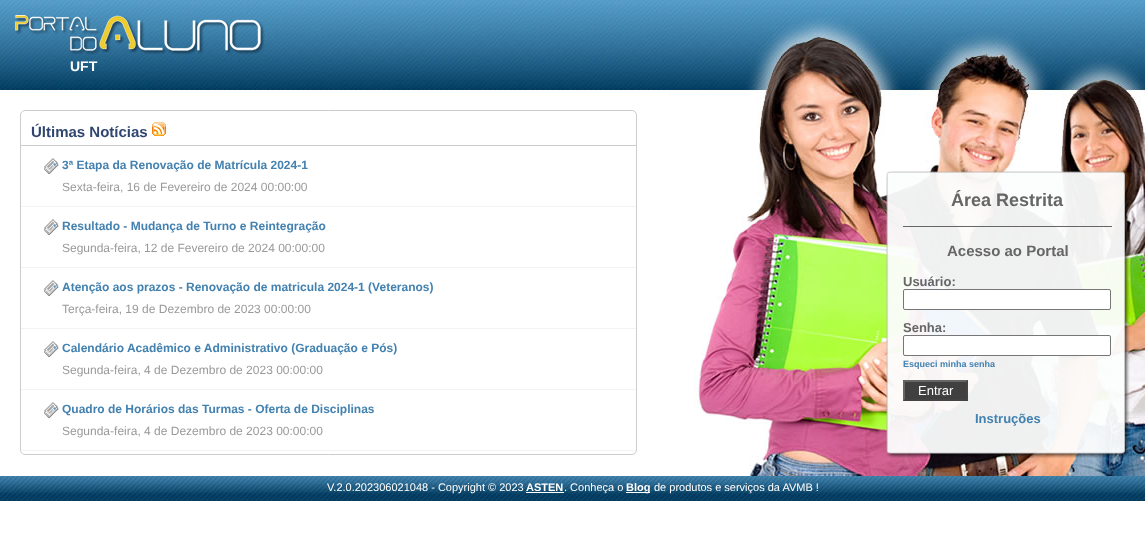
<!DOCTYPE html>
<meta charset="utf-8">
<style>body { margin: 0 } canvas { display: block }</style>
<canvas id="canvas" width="1145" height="534"></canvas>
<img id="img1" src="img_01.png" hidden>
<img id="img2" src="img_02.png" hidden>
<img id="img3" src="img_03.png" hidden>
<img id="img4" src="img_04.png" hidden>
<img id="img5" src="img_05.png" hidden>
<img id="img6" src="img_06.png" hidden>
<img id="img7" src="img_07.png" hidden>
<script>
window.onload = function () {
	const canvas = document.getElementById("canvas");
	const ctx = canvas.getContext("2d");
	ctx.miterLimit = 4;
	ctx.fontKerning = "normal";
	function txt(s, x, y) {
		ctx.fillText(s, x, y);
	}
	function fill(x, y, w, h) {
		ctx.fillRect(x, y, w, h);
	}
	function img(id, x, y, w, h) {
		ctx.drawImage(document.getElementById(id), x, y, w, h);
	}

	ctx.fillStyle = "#FFFFFF";
	fill(0, 0, 1145, 534);
	img("img1", 0, 0, 669, 90);
	img("img2", 15, 15, 250, 40);
	ctx.beginPath();
	ctx.roundRect(20.5, 110.5, 616, 344, 4.5);
	ctx.strokeStyle = "#CCCCCC";
	ctx.stroke();
	ctx.fillStyle = "#CCCCCC";
	fill(21, 145, 615, 1);
	img("img3", 152, 122, 14, 14);
	ctx.fillStyle = "#F6F2F2";
	fill(21, 206, 615, 1);
	img("img4", 44, 158, 15, 16);
	fill(21, 267, 615, 1);
	img("img4", 44, 219, 15, 16);
	fill(21, 328, 615, 1);
	img("img4", 44, 280, 15, 16);
	fill(21, 389, 615, 1);
	img("img4", 44, 341, 15, 16);
	fill(21, 450, 615, 1);
	img("img4", 44, 402, 15, 16);
	img("img5", 669, 0, 476, 476);
	img("img6", 886, 171, 244, 287);
	ctx.fillStyle = "#666666";
	fill(903, 226, 209, 1);
	ctx.fillStyle = "#FFFFFF";
	ctx.beginPath();
	ctx.roundRect(903.5, 289.5, 207, 20, 1.5);
	ctx.fill();
	ctx.strokeStyle = "#767676";
	ctx.stroke();
	ctx.beginPath();
	ctx.roundRect(903.5, 335.5, 207, 20, 1.5);
	ctx.fill();
	ctx.stroke();
	ctx.fillStyle = "#404040";
	fill(903, 380, 65, 21);
	ctx.fillStyle = "#666666";
	ctx.beginPath();
	ctx.moveTo(903, 380);
	ctx.lineTo(968, 380);
	ctx.lineTo(966, 382);
	ctx.lineTo(905, 382);
	ctx.closePath();
	ctx.fill();
	ctx.fillStyle = "#444444";
	ctx.beginPath();
	ctx.moveTo(968, 380);
	ctx.lineTo(968, 401);
	ctx.lineTo(966, 399);
	ctx.lineTo(966, 382);
	ctx.closePath();
	ctx.fill();
	ctx.beginPath();
	ctx.moveTo(968, 401);
	ctx.lineTo(903, 401);
	ctx.lineTo(905, 399);
	ctx.lineTo(966, 399);
	ctx.closePath();
	ctx.fill();
	ctx.fillStyle = "#666666";
	ctx.beginPath();
	ctx.moveTo(903, 401);
	ctx.lineTo(903, 380);
	ctx.lineTo(905, 382);
	ctx.lineTo(905, 399);
	ctx.closePath();
	ctx.fill();
	img("img7", 0, 476, 1145, 25);
	ctx.fillStyle = "#FFFFFF";
	fill(526, 492, 38, 1);
	fill(626, 492, 24, 1);
	ctx.font = "bold 14px Liberation Sans";
	txt("UFT", 70, 71);
	ctx.font = "bold 15px Liberation Sans";
	ctx.fillStyle = "#304670";
	txt("Últimas Notícias", 31, 137);
	ctx.font = "bold 12px Liberation Sans";
	ctx.fillStyle = "#4382B0";
	txt("3ª Etapa da Renovação de Matrícula 2024-1", 62, 169);
	ctx.font = "12px Liberation Sans";
	ctx.fillStyle = "#999999";
	txt("Sexta-feira, 16 de Fevereiro de 2024 00:00:00", 62, 191);
	ctx.font = "bold 12px Liberation Sans";
	ctx.fillStyle = "#4382B0";
	txt("Resultado - Mudança de Turno e Reintegração", 62, 230);
	ctx.font = "12px Liberation Sans";
	ctx.fillStyle = "#999999";
	txt("Segunda-feira, 12 de Fevereiro de 2024 00:00:00", 62, 252);
	ctx.font = "bold 12px Liberation Sans";
	ctx.fillStyle = "#4382B0";
	txt("Atenção aos prazos - Renovação de matricula 2024-1 (Veteranos)", 62, 291);
	ctx.font = "12px Liberation Sans";
	ctx.fillStyle = "#999999";
	txt("Terça-feira, 19 de Dezembro de 2023 00:00:00", 62, 313);
	ctx.font = "bold 12px Liberation Sans";
	ctx.fillStyle = "#4382B0";
	txt("Calendário Acadêmico e Administrativo (Graduação e Pós)", 62, 352);
	ctx.font = "12px Liberation Sans";
	ctx.fillStyle = "#999999";
	txt("Segunda-feira, 4 de Dezembro de 2023 00:00:00", 62, 374);
	ctx.font = "bold 12px Liberation Sans";
	ctx.fillStyle = "#4382B0";
	txt("Quadro de Horários das Turmas - Oferta de Disciplinas", 62, 413);
	ctx.font = "12px Liberation Sans";
	ctx.fillStyle = "#999999";
	txt("Segunda-feira, 4 de Dezembro de 2023 00:00:00", 62, 435);
	ctx.font = "bold 18px Liberation Sans";
	ctx.fillStyle = "#666666";
	txt("Área Restrita", 951, 206);
	ctx.font = "bold 15px Liberation Sans";
	txt("Acesso ao Portal", 947, 256);
	ctx.font = "bold 13px Liberation Sans";
	txt("Usuário:", 903, 286);
	txt("Senha:", 903, 332);
	ctx.font = "bold 9px Liberation Sans";
	ctx.fillStyle = "#4382B0";
	txt("Esqueci minha senha", 903, 367);
	ctx.font = "13px Liberation Sans";
	ctx.fillStyle = "#FFFFFF";
	txt("Entrar", 918, 395);
	ctx.font = "bold 13px Liberation Sans";
	ctx.fillStyle = "#4382B0";
	txt("Instruções", 975, 423);
	ctx.font = "11px Liberation Sans";
	ctx.fillStyle = "#FFFFFF";
	txt("V.2.0.202306021048 - Copyright © 2023", 327, 491);
	ctx.font = "bold 11px Liberation Sans";
	txt("ASTEN", 526, 491);
	ctx.font = "11px Liberation Sans";
	txt(". Conheça o", 564, 491);
	ctx.font = "bold 11px Liberation Sans";
	txt("Blog", 626, 491);
	ctx.font = "11px Liberation Sans";
	txt("de produtos e serviços da AVMB !", 654, 491);
};
</script>
